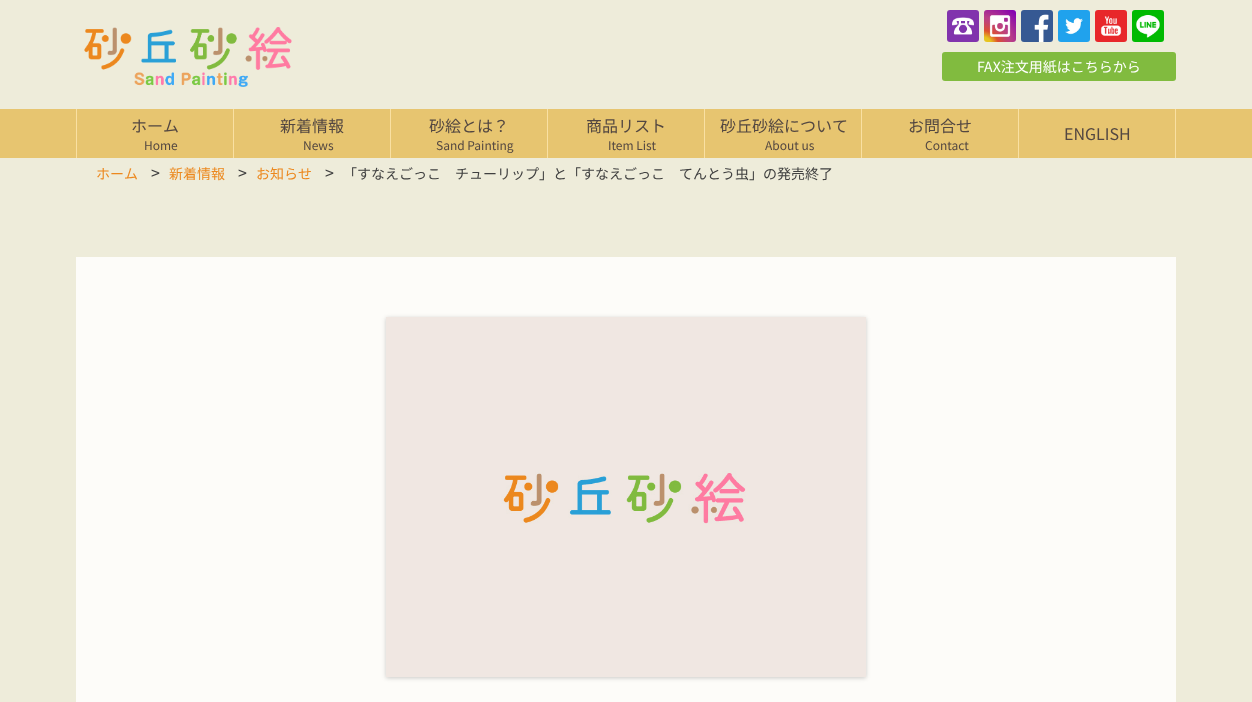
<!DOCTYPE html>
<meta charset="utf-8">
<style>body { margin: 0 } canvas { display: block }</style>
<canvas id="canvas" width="1252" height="702"></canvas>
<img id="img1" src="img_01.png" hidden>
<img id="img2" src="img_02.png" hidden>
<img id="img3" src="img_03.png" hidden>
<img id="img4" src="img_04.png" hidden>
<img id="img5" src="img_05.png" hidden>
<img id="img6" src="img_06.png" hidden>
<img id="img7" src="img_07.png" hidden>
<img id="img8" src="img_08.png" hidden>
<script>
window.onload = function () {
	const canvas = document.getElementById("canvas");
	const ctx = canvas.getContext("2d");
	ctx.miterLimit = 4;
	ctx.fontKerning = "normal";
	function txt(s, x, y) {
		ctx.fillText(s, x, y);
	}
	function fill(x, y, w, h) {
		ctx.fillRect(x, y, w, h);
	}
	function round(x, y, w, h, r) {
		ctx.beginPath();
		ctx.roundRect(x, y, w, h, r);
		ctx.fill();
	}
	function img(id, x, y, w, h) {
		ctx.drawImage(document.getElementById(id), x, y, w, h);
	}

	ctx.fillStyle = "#EEECDA";
	fill(0, 0, 1252, 702);
	img("img1", 84, 27, 208, 60);
	img("img2", 947, 10, 32, 32);
	img("img3", 984, 10, 32, 32);
	img("img4", 1021, 10, 32, 32);
	img("img5", 1058, 10, 32, 32);
	img("img6", 1095, 10, 32, 32);
	img("img7", 1132, 10, 32, 32);
	ctx.fillStyle = "#81BB3F";
	round(942, 52, 234, 29, 3);
	ctx.fillStyle = "#E7C570";
	fill(0, 109, 1252, 49);
	ctx.fillStyle = "#F9E0A2";
	fill(76, 109, 1, 49);
	fill(233, 109, 1, 49);
	fill(390, 109, 1, 49);
	fill(547, 109, 1, 49);
	fill(704, 109, 1, 49);
	fill(861, 109, 1, 49);
	fill(1175, 109, 1, 49);
	fill(1018, 109, 1, 49);
	ctx.fillStyle = "#FDFCF9";
	fill(76, 257, 1100, 445);
	ctx.fillStyle = "rgba(0, 0, 0, 0.2)";
	ctx.filter = "blur(2px)";
	ctx.beginPath();
	ctx.rect(386, 318, 480, 360);
	ctx.fill();
	ctx.filter = "none";
	img("img8", 386, 317, 480, 360);
	ctx.font = "14px Noto Sans JP";
	ctx.fillStyle = "#FFFFFF";
	txt("FAX注文用紙はこちらから", 977, 72);
	ctx.font = "16px Noto Sans JP";
	ctx.fillStyle = "#534741";
	txt("ホーム", 131, 132);
	ctx.font = "12px Noto Sans JP";
	txt("Home", 144, 150);
	ctx.font = "16px Noto Sans JP";
	txt("新着情報", 280, 132);
	ctx.font = "12px Noto Sans JP";
	txt("News", 303, 150);
	ctx.font = "16px Noto Sans JP";
	txt("砂絵とは？", 429, 132);
	ctx.font = "12px Noto Sans JP";
	txt("Sand Painting", 436, 150);
	ctx.font = "16px Noto Sans JP";
	txt("商品リスト", 586, 132);
	ctx.font = "12px Noto Sans JP";
	txt("Item List", 608, 150);
	ctx.font = "16px Noto Sans JP";
	txt("砂丘砂絵について", 720, 132);
	ctx.font = "12px Noto Sans JP";
	txt("About us", 765, 150);
	ctx.font = "16px Noto Sans JP";
	txt("お問合せ", 908, 132);
	ctx.font = "12px Noto Sans JP";
	txt("Contact", 925, 150);
	ctx.font = "16px Noto Sans JP";
	txt("ENGLISH", 1064, 140);
	ctx.font = "14px Noto Sans JP";
	ctx.fillStyle = "#EC881E";
	txt("ホーム", 96, 179);
	ctx.font = "16px Noto Sans JP";
	ctx.fillStyle = "#404040";
	txt(">", 151, 179);
	ctx.font = "14px Noto Sans JP";
	ctx.fillStyle = "#EC881E";
	txt("新着情報", 169, 179);
	ctx.font = "16px Noto Sans JP";
	ctx.fillStyle = "#404040";
	txt(">", 238, 179);
	ctx.font = "14px Noto Sans JP";
	ctx.fillStyle = "#EC881E";
	txt("お知らせ", 256, 179);
	ctx.font = "16px Noto Sans JP";
	ctx.fillStyle = "#404040";
	txt(">", 325, 179);
	ctx.font = "14px Noto Sans JP";
	txt("「すなえごっこ　チューリップ」と「すなえごっこ　てんとう虫」の発売終了", 343, 179);
};
</script>
